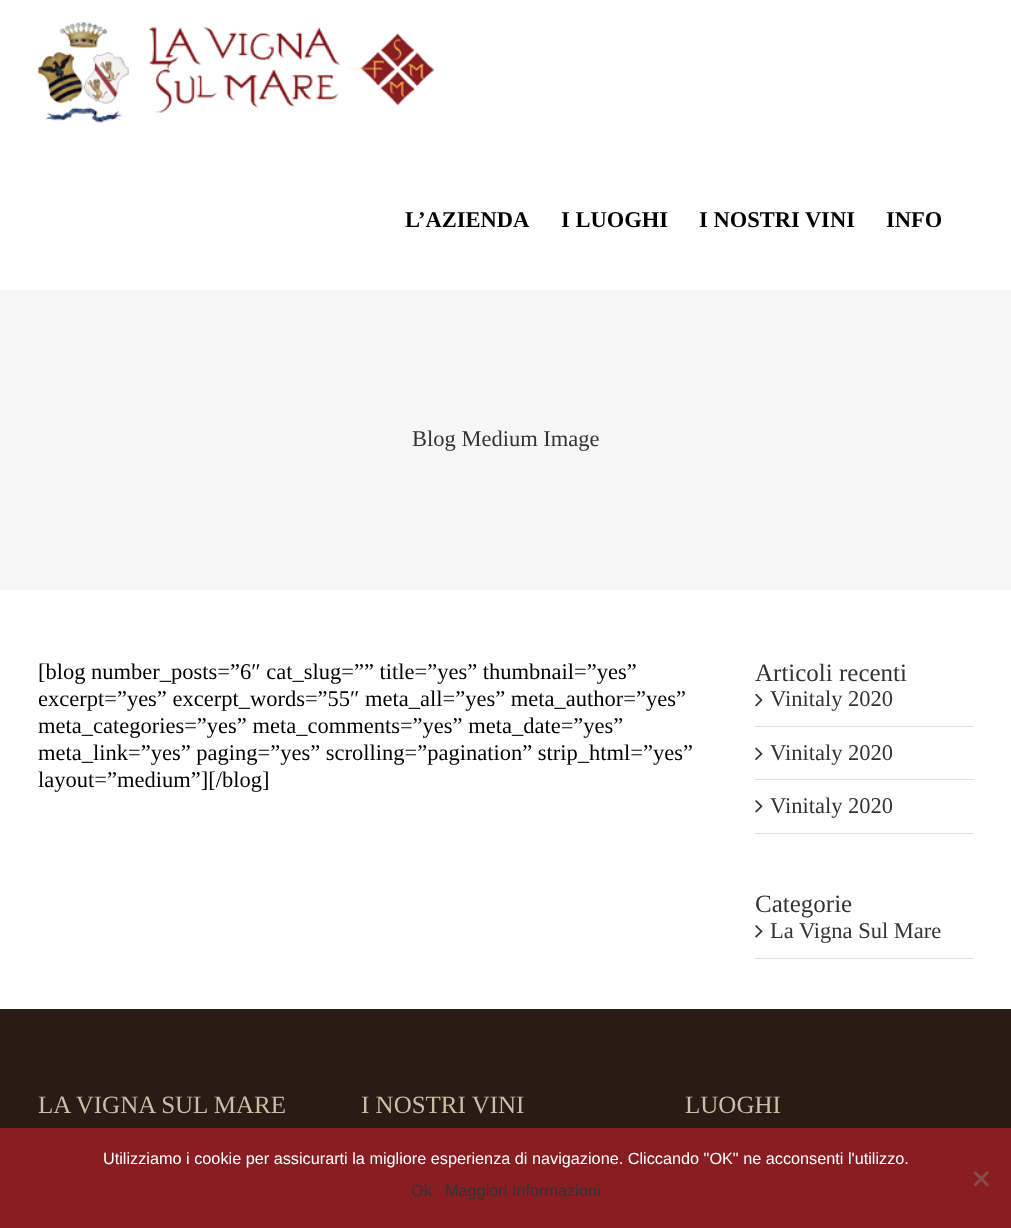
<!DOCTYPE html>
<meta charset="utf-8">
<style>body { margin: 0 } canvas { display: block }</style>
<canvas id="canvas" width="1011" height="1228"></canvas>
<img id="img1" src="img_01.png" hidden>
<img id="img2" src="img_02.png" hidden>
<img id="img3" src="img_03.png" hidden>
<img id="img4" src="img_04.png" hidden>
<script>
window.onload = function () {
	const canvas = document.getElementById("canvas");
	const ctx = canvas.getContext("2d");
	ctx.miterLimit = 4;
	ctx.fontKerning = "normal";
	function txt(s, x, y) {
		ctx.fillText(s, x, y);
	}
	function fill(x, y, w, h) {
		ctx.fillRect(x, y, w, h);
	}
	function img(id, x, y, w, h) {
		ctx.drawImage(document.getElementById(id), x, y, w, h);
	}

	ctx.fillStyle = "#FFFFFF";
	fill(0, 0, 1011, 1228);
	img("img1", 37, 22, 397, 101);
	ctx.fillStyle = "#F6F6F6";
	fill(0, 290, 1011, 300);
	ctx.fillStyle = "#E0DEDE";
	fill(755, 726, 219, 1);
	img("img2", 755, 693, 8, 14);
	fill(755, 779, 219, 1);
	img("img3", 755, 747, 8, 13);
	fill(755, 833, 219, 1);
	img("img4", 755, 800, 8, 13);
	fill(755, 958, 219, 1);
	img("img4", 755, 925, 8, 13);
	ctx.fillStyle = "#291C14";
	fill(0, 1009, 1011, 119);
	ctx.fillStyle = "#891E22";
	fill(0, 1128, 1011, 100);
	ctx.fillStyle = "#854F51";
	ctx.beginPath();
	ctx.moveTo(987, 1171);
	ctx.lineTo(989, 1173);
	ctx.lineTo(975.5, 1186.5);
	ctx.lineTo(973.5, 1184.5);
	ctx.closePath();
	ctx.fill();
	ctx.beginPath();
	ctx.moveTo(973.5, 1173);
	ctx.lineTo(975.5, 1171);
	ctx.lineTo(989, 1184.5);
	ctx.lineTo(987, 1186.5);
	ctx.closePath();
	ctx.fill();
	ctx.font = "bold 22.5px Liberation Serif";
	ctx.fillStyle = "#000000";
	txt("L’AZIENDA", 405, 227);
	txt("I LUOGHI", 561, 227);
	txt("I NOSTRI VINI", 699, 227);
	txt("INFO", 886, 227);
	ctx.font = "22.5px Liberation Serif";
	ctx.fillStyle = "#333333";
	txt("Blog Medium Image", 412, 446);
	ctx.fillStyle = "#000000";
	txt("[blog number_posts=”6″ cat_slug=”” title=”yes” thumbnail=”yes”", 38, 679);
	txt("excerpt=”yes” excerpt_words=”55″ meta_all=”yes” meta_author=”yes”", 38, 706);
	txt("meta_categories=”yes” meta_comments=”yes” meta_date=”yes”", 38, 733);
	txt("meta_link=”yes” paging=”yes” scrolling=”pagination” strip_html=”yes”", 38, 760);
	txt("layout=”medium”][/blog]", 38, 787);
	ctx.font = "25px Liberation Serif";
	ctx.fillStyle = "#333333";
	txt("Articoli recenti", 755, 681);
	ctx.font = "22.5px Liberation Serif";
	txt("Vinitaly 2020", 770, 706);
	txt("Vinitaly 2020", 770, 760);
	txt("Vinitaly 2020", 770, 813);
	ctx.font = "25px Liberation Serif";
	txt("Categorie", 755, 912);
	ctx.font = "22.5px Liberation Serif";
	txt("La Vigna Sul Mare", 770, 938);
	ctx.font = "25px Liberation Serif";
	ctx.fillStyle = "#C9BEA7";
	txt("LA VIGNA SUL MARE", 38, 1113);
	txt("I NOSTRI VINI", 361, 1113);
	txt("LUOGHI", 685, 1113);
	ctx.font = "16.25px Liberation Sans";
	ctx.fillStyle = "#FFFFFF";
	txt("Utilizziamo i cookie per assicurarti la migliore esperienza di navigazione. Cliccando \"OK\" ne acconsenti l'utilizzo.", 103, 1164);
	ctx.fillStyle = "#333333";
	txt("Ok", 411, 1196);
	txt("Maggiori Informazioni", 445, 1196);
};
</script>
